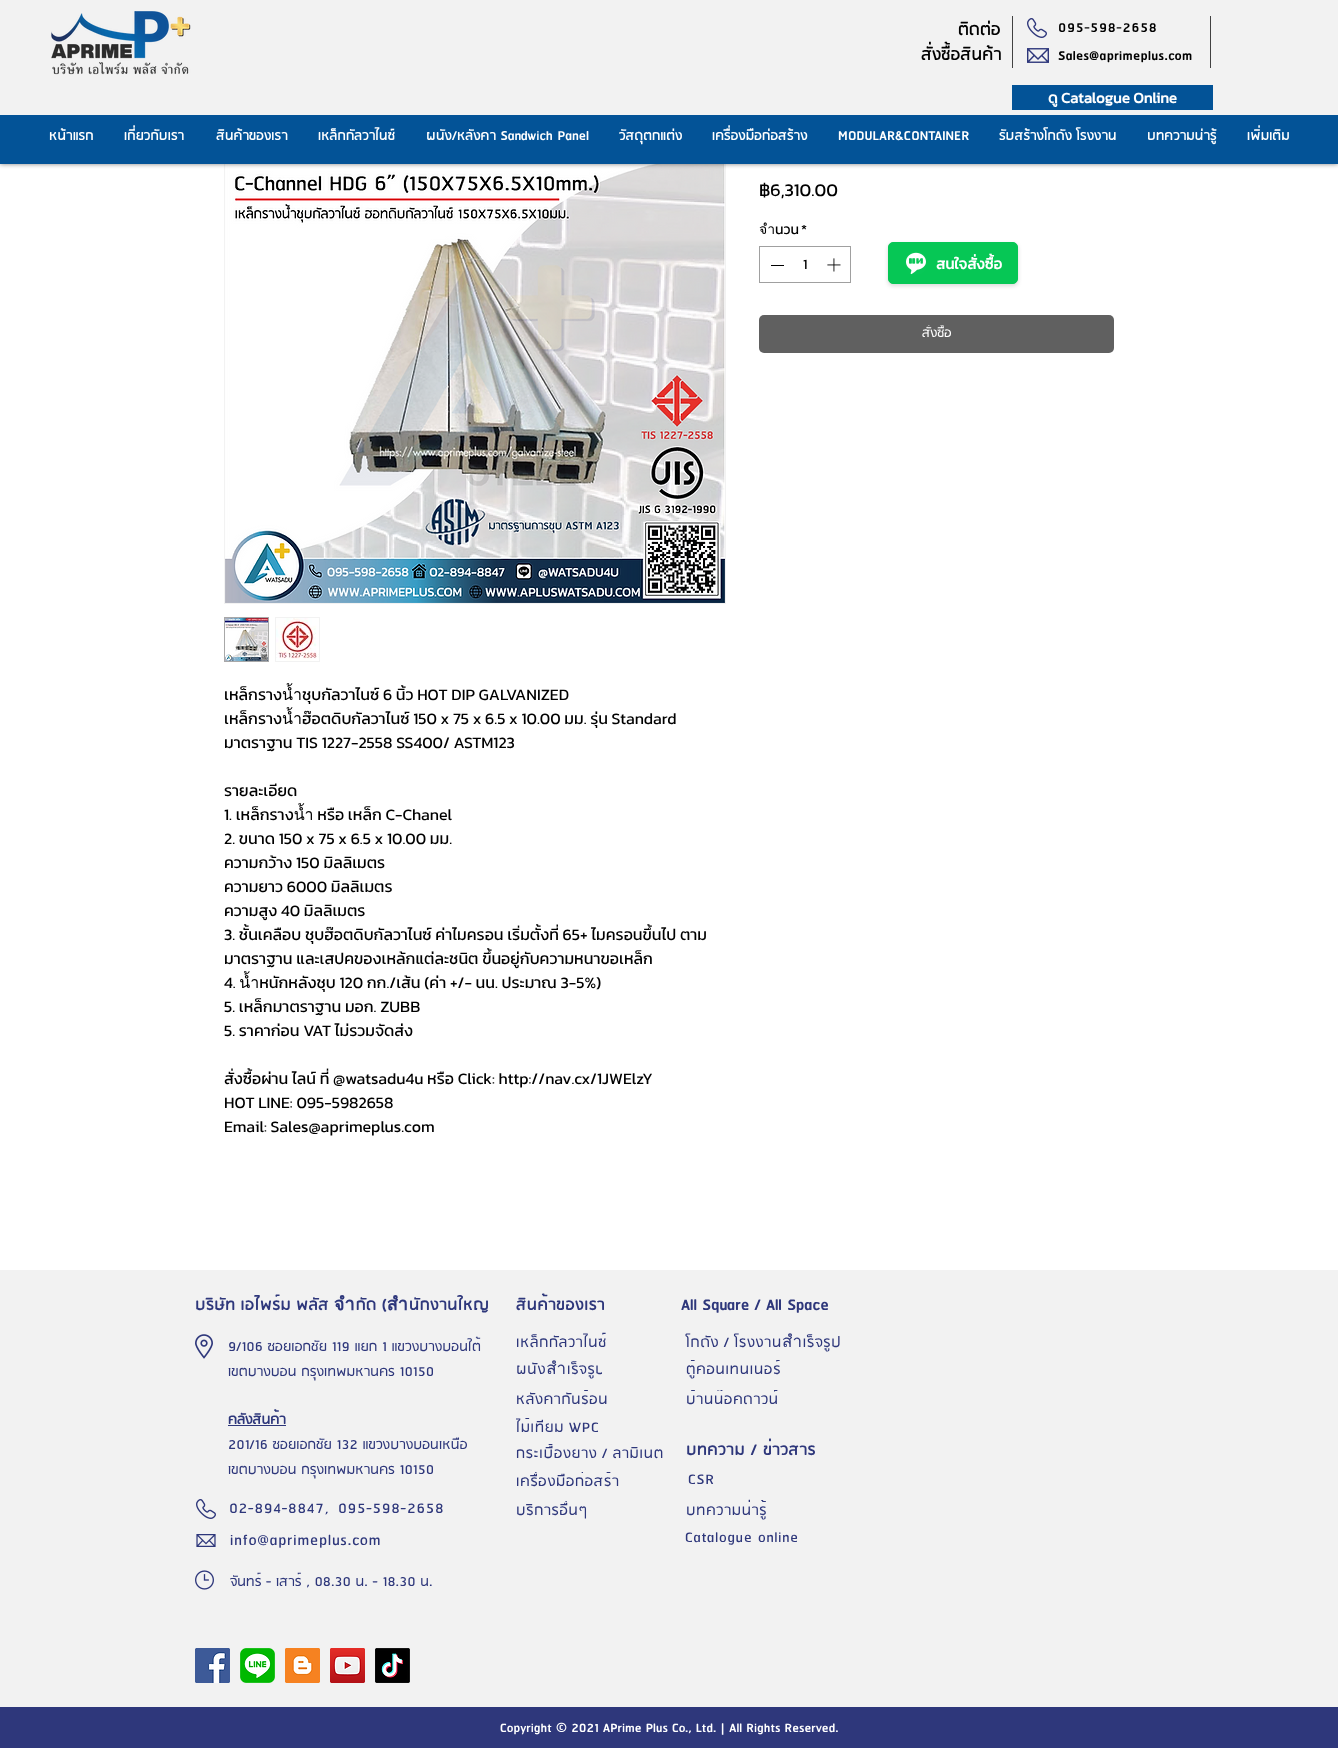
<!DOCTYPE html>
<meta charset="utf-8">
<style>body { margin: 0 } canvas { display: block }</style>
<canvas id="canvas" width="1338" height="1748"></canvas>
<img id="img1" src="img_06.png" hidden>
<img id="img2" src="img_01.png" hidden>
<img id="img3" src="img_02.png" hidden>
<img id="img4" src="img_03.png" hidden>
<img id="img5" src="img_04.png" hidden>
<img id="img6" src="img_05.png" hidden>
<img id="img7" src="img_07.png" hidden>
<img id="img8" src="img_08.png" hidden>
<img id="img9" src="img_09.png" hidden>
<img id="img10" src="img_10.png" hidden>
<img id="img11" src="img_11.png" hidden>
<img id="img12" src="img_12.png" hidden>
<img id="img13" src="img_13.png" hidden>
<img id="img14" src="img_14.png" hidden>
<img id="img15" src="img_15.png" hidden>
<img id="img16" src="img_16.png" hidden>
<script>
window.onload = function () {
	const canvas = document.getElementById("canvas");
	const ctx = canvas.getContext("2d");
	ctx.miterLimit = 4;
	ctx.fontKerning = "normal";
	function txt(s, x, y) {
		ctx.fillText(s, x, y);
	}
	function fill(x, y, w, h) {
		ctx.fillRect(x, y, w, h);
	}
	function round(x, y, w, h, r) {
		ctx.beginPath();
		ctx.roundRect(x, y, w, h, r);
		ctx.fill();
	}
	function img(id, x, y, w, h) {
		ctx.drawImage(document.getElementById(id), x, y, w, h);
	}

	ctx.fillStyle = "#FFFFFF";
	fill(0, 0, 1338, 1748);
	ctx.strokeStyle = "#F2F2F2";
	ctx.strokeRect(224.5, 102.5, 501, 501);
	img("img1", 225, 164, 500, 439);
	ctx.fillStyle = "rgba(0, 0, 0, 0.5)";
	ctx.filter = "blur(2.5px)";
	ctx.beginPath();
	ctx.rect(0, 0, 1338, 164);
	ctx.fill();
	ctx.filter = "none";
	ctx.fillStyle = "#F2F2F2";
	fill(0, 0, 1338, 115);
	img("img2", 51, 11, 140, 64);
	ctx.fillStyle = "#424242";
	fill(1012, 16, 1, 52);
	img("img3", 1027, 18, 20, 20);
	fill(1210, 16, 1, 52);
	img("img4", 1027, 48, 22, 15);
	ctx.fillStyle = "#035397";
	fill(1012, 85, 201, 25);
	fill(0, 115, 1338, 49);
	ctx.strokeStyle = "#A0A0A0";
	ctx.strokeRect(759.5, 246.5, 91, 36);
	ctx.fillStyle = "#000000";
	fill(771, 265, 13, 1);
	img("img5", 827, 258, 14, 14);
	ctx.fillStyle = "rgba(0, 0, 0, 0.15)";
	ctx.filter = "blur(2px)";
	ctx.beginPath();
	ctx.roundRect(888, 244, 130, 42, 5);
	ctx.fill();
	ctx.filter = "none";
	ctx.fillStyle = "#06C755";
	ctx.beginPath();
	ctx.roundRect(888.5, 242.5, 129, 41, 4.5);
	ctx.fill();
	ctx.strokeStyle = "#06C755";
	ctx.stroke();
	img("img6", 906, 252, 20, 23);
	ctx.fillStyle = "#606060";
	round(759, 315, 355, 38, 5);
	ctx.strokeStyle = "#A8A8A8";
	ctx.strokeRect(224.5, 617.5, 44, 44);
	img("img7", 225, 618, 43, 43);
	ctx.fillStyle = "#F2F2F2";
	fill(275, 617, 45, 45);
	img("img8", 276, 618, 43, 43);
	fill(0, 1270, 1338, 437);
	img("img9", 195, 1334, 18, 25);
	ctx.fillStyle = "#2E377B";
	fill(228, 1425, 58, 1);
	img("img3", 196, 1499, 20, 20);
	img("img10", 196, 1534, 20, 13);
	img("img11", 195, 1570, 19, 20);
	img("img12", 195, 1648, 35, 35);
	img("img13", 240, 1648, 35, 35);
	img("img14", 285, 1648, 35, 35);
	img("img15", 330, 1648, 35, 35);
	img("img16", 375, 1648, 35, 35);
	fill(0, 1707, 1338, 41);
	ctx.font = "bold 20px 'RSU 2'";
	ctx.fillStyle = "#000000";
	txt("ติดต่อ", 958, 35);
	txt("สั่งซื้อสินค้า", 921, 60);
	ctx.letterSpacing = "0.75px";
	ctx.font = "bold 16px 'RSU 2'";
	txt("095-598-2658", 1058, 32);
	ctx.font = "bold 15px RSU";
	txt("Sales@aprimeplus.com", 1058, 60);
	ctx.save();
	ctx.beginPath();
	ctx.rect(1048, 88, 129, 19);
	ctx.clip();
	ctx.letterSpacing = "0px";
	ctx.font = "bold 15px Kanit";
	ctx.fillStyle = "#FFFFFF";
	txt("ดู Catalogue Online", 1048, 103);
	ctx.restore();
	ctx.letterSpacing = "0px";
	ctx.font = "bold 16px 'RSU 2'";
	ctx.fillStyle = "#FFFFFF";
	txt("หน้าแรก", 49, 140);
	txt("เกี่ยวกับเรา", 124, 140);
	txt("สินค้าของเรา", 216, 140);
	txt("เหล็กกัลวาไนซ์", 318, 140);
	txt("ผนัง/หลังคา Sandwich Panel", 426, 140);
	txt("วัสดุตกแต่ง", 619, 140);
	txt("เครื่องมือก่อสร้าง", 712, 140);
	txt("MODULAR&CONTAINER", 838, 140);
	txt("รับสร้างโกดัง โรงงาน", 999, 140);
	txt("บทความน่ารู้", 1147, 140);
	txt("เพิ่มเติม", 1247, 140);
	ctx.font = "18px Kanit";
	ctx.fillStyle = "#000000";
	txt("฿6,310.00", 759, 196);
	ctx.font = "14px Kanit";
	txt("จำนวน", 759, 234);
	txt("*", 801, 234);
	txt("1", 803, 269);
	ctx.font = "bold 15px Kanit";
	ctx.fillStyle = "#FFFFFF";
	txt("สนใจสั่งซื้อ", 936, 269);
	ctx.save();
	ctx.beginPath();
	ctx.rect(922, 325, 29, 18);
	ctx.clip();
	ctx.font = "15px RSU";
	txt("สั่งซื้อ", 922, 337);
	ctx.restore();
	ctx.font = "16px Kanit";
	ctx.fillStyle = "#000000";
	txt("เหล็กรางน้ำชุบกัลวาไนซ์ 6 นิ้ว HOT DIP GALVANIZED", 224, 700);
	txt("เหล็กรางน้ำฮ๊อตดิบกัลวาไนซ์ 150 x 75 x 6.5 x 10.00 มม. รุ่น Standard", 224, 724);
	txt("มาตราฐาน TIS 1227-2558 SS400/ ASTM123", 224, 748);
	txt("รายละเอียด", 224, 796);
	txt("1. เหล็กรางน้ำ หรือ เหล็ก C-Chanel", 224, 820);
	txt("2. ขนาด 150 x 75 x 6.5 x 10.00 มม.", 224, 844);
	txt("ความกว้าง 150 มิลลิเมตร", 224, 868);
	txt("ความยาว 6000 มิลลิเมตร", 224, 892);
	txt("ความสูง 40 มิลลิเมตร", 224, 916);
	txt("3. ชั้นเคลือบ ชุบฮ๊อตดิบกัลวาไนซ์ ค่าไมครอน เริ่มตั้งที่ 65+ ไมครอนขึ้นไป ตาม", 224, 940);
	txt("มาตราฐาน และเสปคของเหล้กแต่ละชนิต ขึ้นอยู่กับความหนาขอเหล็ก", 224, 964);
	txt("4. น้ำหนักหลังชุบ 120 กก./เส้น (ค่า +/- นน. ประมาณ 3-5%)", 224, 988);
	txt("5. เหล็กมาตราฐาน มอก. ZUBB", 224, 1012);
	txt("5. ราคาก่อน VAT ไม่รวมจัดส่ง", 224, 1036);
	ctx.save();
	ctx.beginPath();
	ctx.rect(224, 682, 500, 480);
	ctx.clip();
	txt("สั่งซื้อผ่าน ไลน์ ที่ @watsadu4u หรือ Click: http://nav.cx/1JWElzY", 224, 1084);
	ctx.restore();
	txt("HOT LINE: 095-5982658", 224, 1108);
	txt("Email: Sales@aprimeplus.com", 224, 1132);
	ctx.letterSpacing = "0.9px";
	ctx.wordSpacing = "-1px";
	ctx.font = "bold 18px RSU";
	ctx.fillStyle = "#2E377B";
	txt("บริษัท เอไพร์ม พลัส จำกัด (สำนักงานใหญ", 195, 1310);
	ctx.letterSpacing = "0.15px";
	ctx.wordSpacing = "0px";
	ctx.font = "16px RSU";
	txt("9/106 ซอยเอกชัย 119 แยก 1 แขวงบางบอนใต้", 228, 1351);
	txt("เขตบางบอน กรุงเทพมหานคร 10150", 228, 1376);
	ctx.font = "bold 16px RSU";
	txt("คลังสินค้า", 228, 1424);
	ctx.font = "16px RSU";
	txt("201/16 ซอยเอก", 228, 1449);
	txt("ชัย 132 แขวงบางบอนเหนือ", 316, 1449);
	txt("เขตบางบอน กรุงเทพมหานคร 10150", 228, 1474);
	ctx.letterSpacing = "0.85px";
	ctx.font = "17px RSU";
	txt("02-894-8847,", 229, 1513);
	txt("095-598-2658", 338, 1513);
	ctx.letterSpacing = "0.9px";
	ctx.font = "18px RSU";
	txt("info@aprimeplus.com", 230, 1545);
	ctx.letterSpacing = "0.15px";
	ctx.font = "16px RSU";
	txt("จันทร์ - เสาร์ , 08.30 น. - 18.30 น.", 230, 1586);
	ctx.save();
	ctx.beginPath();
	ctx.rect(516, 1293, 89, 26);
	ctx.clip();
	ctx.letterSpacing = "0.9px";
	ctx.font = "bold 18px RSU";
	txt("สินค้าของเรา", 516, 1310);
	ctx.restore();
	ctx.letterSpacing = "0.4px";
	ctx.font = "bold 18px RSU";
	txt("All Square / All Space", 681, 1310);
	ctx.letterSpacing = "0.85px";
	ctx.font = "17px RSU";
	txt("เหล็กกัลวาไนซ์", 516, 1347);
	ctx.wordSpacing = "-1px";
	txt("โกดัง / โรงงานสำเร็จรูป", 686, 1347);
	ctx.save();
	ctx.beginPath();
	ctx.rect(516, 1360, 86, 20);
	ctx.clip();
	ctx.wordSpacing = "0px";
	txt("ผนังสำเร็จรูป", 516, 1374);
	ctx.restore();
	ctx.save();
	ctx.beginPath();
	ctx.rect(686, 1360, 95, 20);
	ctx.clip();
	ctx.wordSpacing = "0px";
	txt("ตู้คอนเทนเนอร์", 686, 1374);
	ctx.restore();
	ctx.save();
	ctx.beginPath();
	ctx.rect(516, 1390, 92, 20);
	ctx.clip();
	ctx.wordSpacing = "0px";
	txt("หลังคากันร้อน", 516, 1404);
	ctx.restore();
	ctx.save();
	ctx.beginPath();
	ctx.rect(686, 1390, 93, 20);
	ctx.clip();
	ctx.wordSpacing = "0px";
	txt("บ้านน๊อคดาวน์", 686, 1404);
	ctx.restore();
	ctx.save();
	ctx.beginPath();
	ctx.rect(516, 1418, 85, 20);
	ctx.clip();
	txt("ไม้เทียม WPC", 516, 1432);
	ctx.restore();
	ctx.save();
	ctx.beginPath();
	ctx.rect(516, 1444, 150, 20);
	ctx.clip();
	txt("กระเบื้องยาง / ลามิเนต", 516, 1458);
	ctx.restore();
	ctx.letterSpacing = "0.9px";
	ctx.wordSpacing = "0px";
	ctx.font = "bold 18px RSU";
	txt("บทความ / ข่าวสาร", 686, 1455);
	ctx.save();
	ctx.beginPath();
	ctx.rect(516, 1472, 112, 20);
	ctx.clip();
	ctx.letterSpacing = "0.85px";
	ctx.font = "17px RSU";
	txt("เครื่องมือก่อสร้า", 516, 1486);
	ctx.restore();
	ctx.letterSpacing = "0.85px";
	ctx.font = "17px RSU";
	txt("CSR", 688, 1484);
	ctx.save();
	ctx.beginPath();
	ctx.rect(516, 1501, 72, 20);
	ctx.clip();
	txt("บริการอื่นๆ", 516, 1515);
	ctx.restore();
	txt("บทความน่ารู้", 686, 1515);
	txt("Catalogue online", 685, 1542);
	ctx.letterSpacing = "0px";
	ctx.font = "bold 15px 'RSU 2'";
	ctx.fillStyle = "#FFFFFF";
	txt("Copyright © 2021 APrime Plus Co., Ltd. | All Rights Reserved.", 500, 1732);
};
</script>
